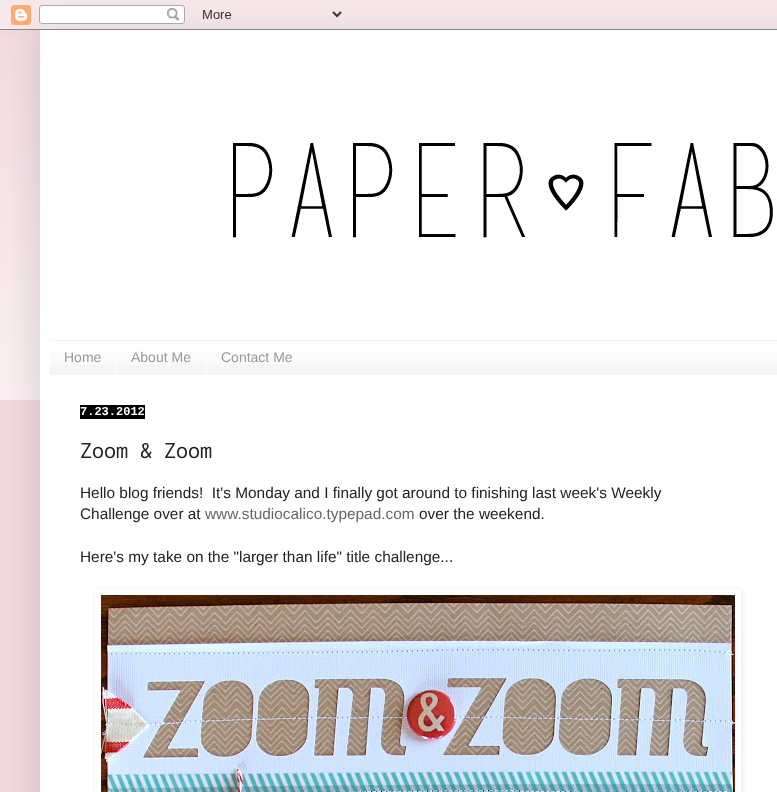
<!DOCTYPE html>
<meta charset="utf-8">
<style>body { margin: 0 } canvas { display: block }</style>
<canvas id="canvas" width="777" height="792"></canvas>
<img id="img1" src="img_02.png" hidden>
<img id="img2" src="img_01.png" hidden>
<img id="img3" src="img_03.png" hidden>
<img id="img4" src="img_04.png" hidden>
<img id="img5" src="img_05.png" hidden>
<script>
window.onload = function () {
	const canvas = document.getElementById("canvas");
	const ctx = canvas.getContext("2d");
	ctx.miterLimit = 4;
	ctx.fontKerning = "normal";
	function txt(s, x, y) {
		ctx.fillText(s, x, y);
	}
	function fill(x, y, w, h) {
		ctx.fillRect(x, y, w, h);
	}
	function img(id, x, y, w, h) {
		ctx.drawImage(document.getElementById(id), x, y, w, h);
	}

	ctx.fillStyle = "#F2D9DF";
	fill(0, 0, 777, 792);
	img("img1", 0, 38, 40, 362);
	ctx.fillStyle = "rgba(0, 0, 0, 0.15)";
	ctx.filter = "blur(20px)";
	ctx.beginPath();
	ctx.rect(40, 30, 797, 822);
	ctx.fill();
	ctx.filter = "none";
	img("img2", 0, 0, 777, 30);
	ctx.fillStyle = "#FFFFFF";
	fill(40, 30, 737, 762);
	img("img3", 233, 143, 540, 95);
	ctx.fillStyle = "#F5F5F5";
	fill(50, 340, 727, 35);
	img("img4", 50, 341, 727, 24);
	ctx.fillStyle = "#FFFFFF";
	fill(116, 352, 1, 22);
	fill(206, 352, 1, 22);
	ctx.fillStyle = "#000000";
	fill(80, 405, 65, 14);
	ctx.save();
	ctx.beginPath();
	ctx.moveTo(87, 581);
	ctx.lineTo(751, 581);
	ctx.lineTo(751, 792);
	ctx.lineTo(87, 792);
	ctx.closePath();
	ctx.moveTo(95, 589);
	ctx.lineTo(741, 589);
	ctx.lineTo(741, 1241);
	ctx.lineTo(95, 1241);
	ctx.closePath();
	ctx.clip("evenodd");
	ctx.fillStyle = "rgba(0, 0, 0, 0.1)";
	ctx.filter = "blur(2.5px)";
	ctx.beginPath();
	ctx.rect(96, 590, 646, 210);
	ctx.fill();
	ctx.filter = "none";
	ctx.restore();
	img("img5", 101, 595, 634, 197);
	ctx.font = "14px Liberation Sans";
	ctx.fillStyle = "#999999";
	txt("Home", 64, 362);
	txt("About Me", 131, 362);
	txt("Contact Me", 221, 362);
	ctx.font = "bold 12px Liberation Mono";
	ctx.fillStyle = "#FFFFFF";
	txt("7.23.2012", 80, 415);
	ctx.font = "24px Inconsolata";
	ctx.fillStyle = "#222222";
	txt("Zoom & Zoom", 80, 458);
	ctx.font = "15.4px Liberation Sans";
	txt("Hello blog friends!  It's Monday and I finally got around to finishing last week's Weekly", 80, 498);
	txt("Challenge over at", 80, 519);
	ctx.fillStyle = "#666666";
	txt("www.studiocalico.typepad.com", 205, 519);
	ctx.fillStyle = "#222222";
	txt("over the weekend.", 419, 519);
	txt("Here's my take on the \"larger than life\" title challenge...", 80, 562);
};
</script>
